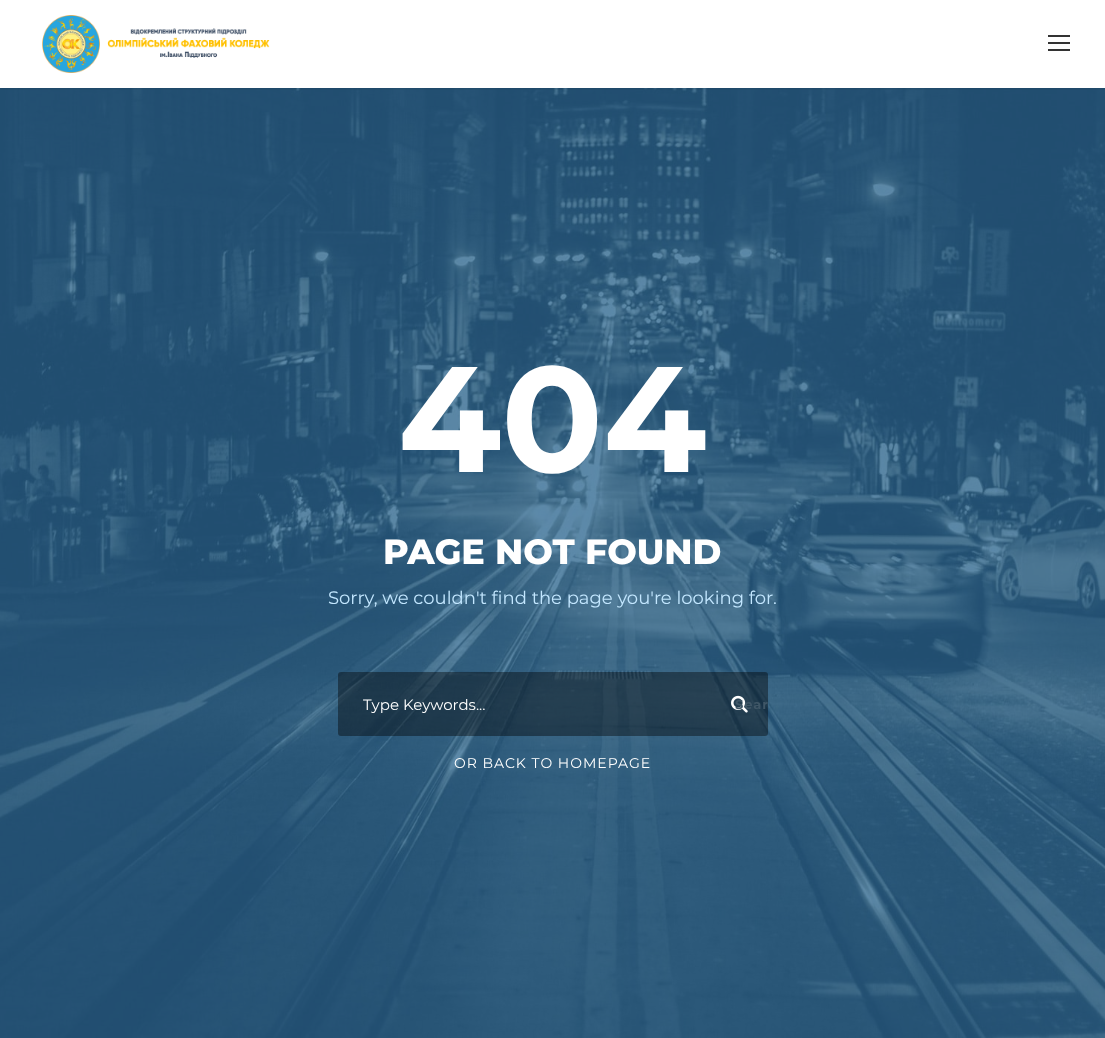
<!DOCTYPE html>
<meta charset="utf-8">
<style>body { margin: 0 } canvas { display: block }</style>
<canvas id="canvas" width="1105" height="1038"></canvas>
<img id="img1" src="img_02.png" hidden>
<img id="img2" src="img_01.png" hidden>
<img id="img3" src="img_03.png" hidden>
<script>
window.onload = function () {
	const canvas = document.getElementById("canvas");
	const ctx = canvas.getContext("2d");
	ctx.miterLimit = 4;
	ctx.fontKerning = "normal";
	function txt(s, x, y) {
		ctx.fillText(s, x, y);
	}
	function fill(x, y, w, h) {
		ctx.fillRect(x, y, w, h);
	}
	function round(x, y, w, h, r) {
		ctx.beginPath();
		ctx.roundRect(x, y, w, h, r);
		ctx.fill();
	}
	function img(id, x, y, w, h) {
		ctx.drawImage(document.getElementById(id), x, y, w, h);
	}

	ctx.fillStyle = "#FFFFFF";
	fill(0, 0, 1105, 1038);
	ctx.fillStyle = "#23618E";
	fill(0, 88, 1105, 950);
	img("img1", 0, 88, 1105, 950);
	ctx.save();
	ctx.beginPath();
	ctx.rect(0, 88, 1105, 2);
	ctx.clip();
	ctx.fillStyle = "rgba(0, 0, 0, 0.1)";
	ctx.filter = "blur(1px)";
	ctx.beginPath();
	ctx.rect(0, 1, 1105, 88);
	ctx.fill();
	ctx.filter = "none";
	ctx.restore();
	img("img2", 42, 15, 228, 58);
	ctx.fillStyle = "#333333";
	fill(1048, 35, 22, 2);
	fill(1048, 42, 22, 2);
	fill(1048, 49, 22, 2);
	ctx.fillStyle = "rgba(0, 0, 0, 0.4)";
	round(338, 672, 430, 64, 3);
	img("img3", 731, 695, 17, 18);
	ctx.font = "bold 150px Montserrat";
	ctx.fillStyle = "#FFFFFF";
	txt("404", 398, 472);
	ctx.font = "800 35px Montserrat";
	txt("PAGE NOT FOUND", 383, 564);
	ctx.font = "18px Montserrat";
	ctx.fillStyle = "#C3E7FF";
	txt("Sorry, we couldn't find the page you're looking for.", 328, 604);
	ctx.font = "15px Montserrat";
	ctx.fillStyle = "#FFFFFF";
	txt("Type Keywords...", 363, 710);
	ctx.letterSpacing = "1px";
	ctx.font = "bold 13px Montserrat";
	ctx.fillStyle = "#3F5666";
	txt("Sear", 735, 709);
	ctx.font = "14px Montserrat";
	ctx.fillStyle = "#FFFFFF";
	txt("OR BACK TO HOMEPAGE", 454, 768);
};
</script>
